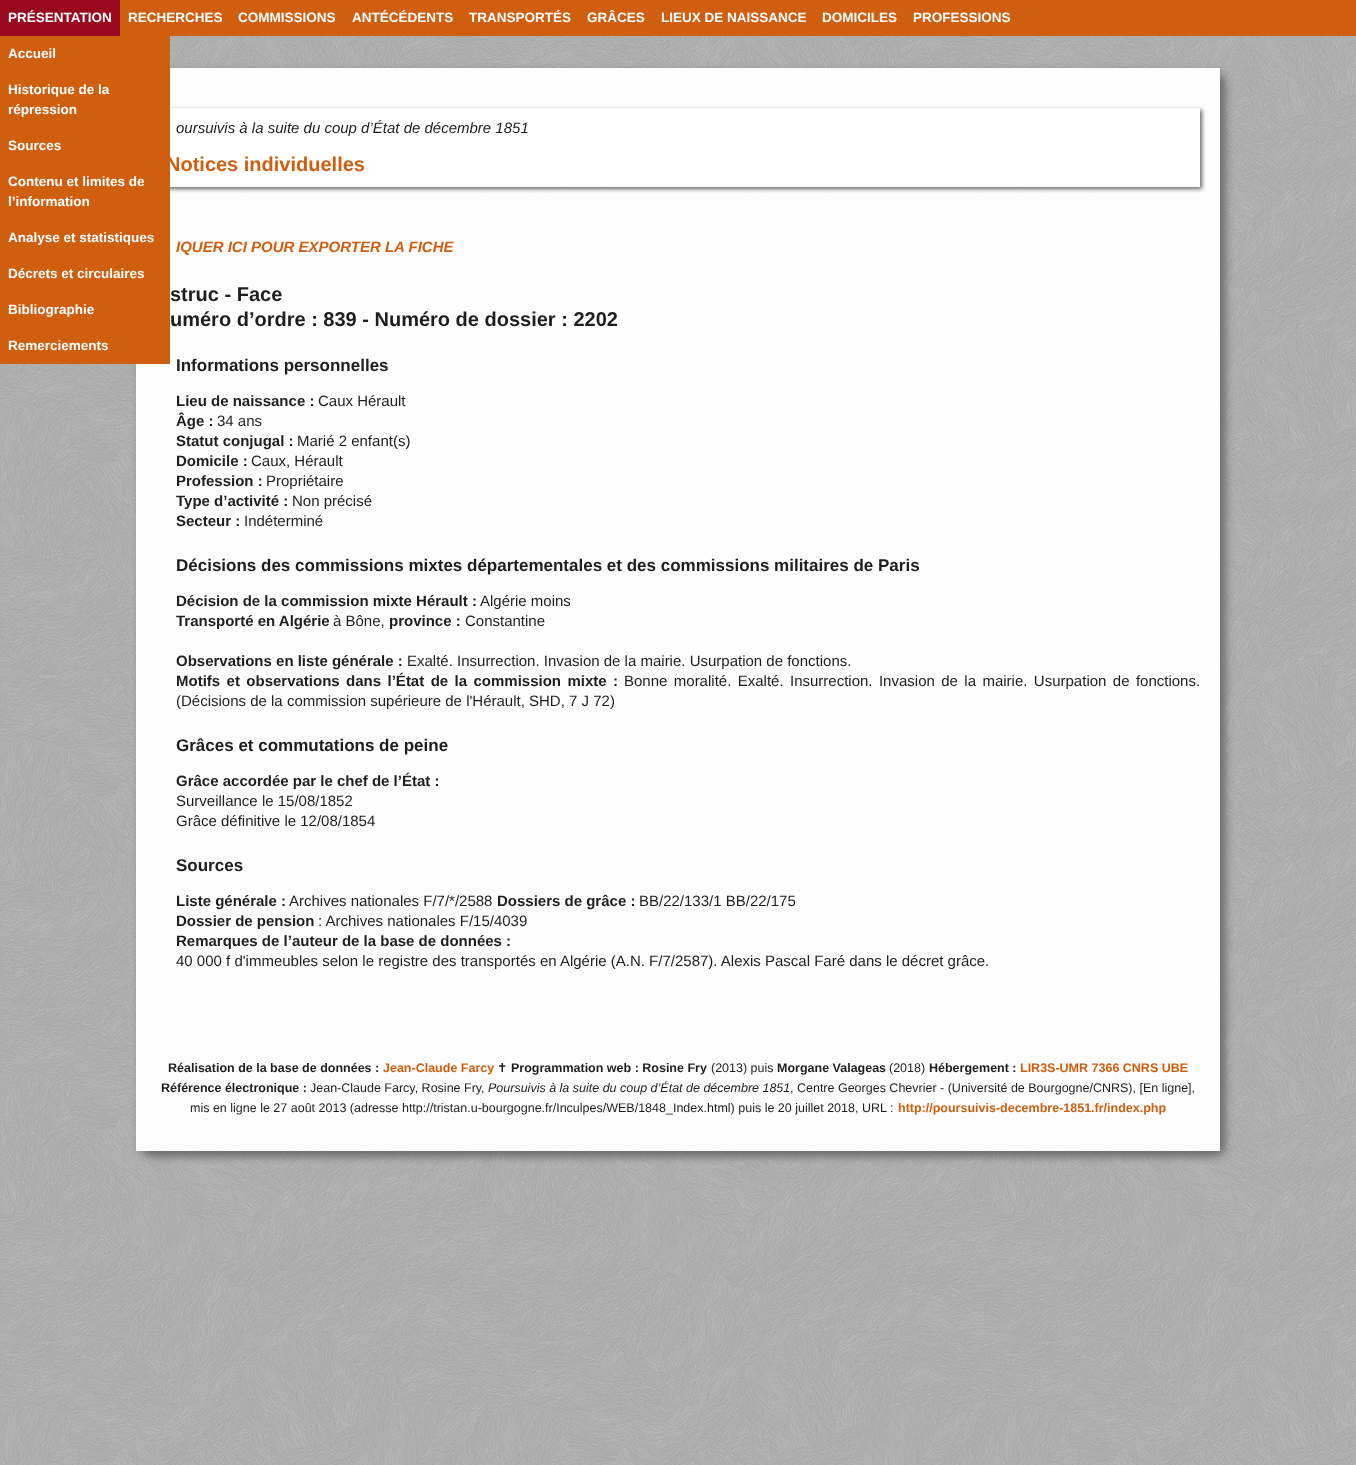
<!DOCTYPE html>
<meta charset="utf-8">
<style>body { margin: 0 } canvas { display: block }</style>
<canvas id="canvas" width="1356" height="1465"></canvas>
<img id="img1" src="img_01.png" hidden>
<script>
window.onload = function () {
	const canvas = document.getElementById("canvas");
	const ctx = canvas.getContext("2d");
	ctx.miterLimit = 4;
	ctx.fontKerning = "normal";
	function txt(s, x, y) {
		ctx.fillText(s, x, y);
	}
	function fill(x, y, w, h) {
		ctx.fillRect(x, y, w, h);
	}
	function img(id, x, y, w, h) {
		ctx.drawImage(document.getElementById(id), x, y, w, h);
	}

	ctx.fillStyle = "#AAAAAA";
	fill(0, 0, 1356, 1465);
	img("img1", 0, 36, 1356, 1429);
	ctx.save();
	ctx.beginPath();
	ctx.moveTo(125, 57);
	ctx.lineTo(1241, 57);
	ctx.lineTo(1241, 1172);
	ctx.lineTo(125, 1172);
	ctx.closePath();
	ctx.moveTo(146, 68);
	ctx.lineTo(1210, 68);
	ctx.bezierCurveTo(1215.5, 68, 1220, 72.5, 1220, 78);
	ctx.lineTo(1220, 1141);
	ctx.bezierCurveTo(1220, 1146.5, 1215.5, 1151, 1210, 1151);
	ctx.lineTo(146, 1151);
	ctx.bezierCurveTo(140.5, 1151, 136, 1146.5, 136, 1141);
	ctx.lineTo(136, 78);
	ctx.bezierCurveTo(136, 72.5, 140.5, 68, 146, 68);
	ctx.closePath();
	ctx.clip("evenodd");
	ctx.fillStyle = "#656565";
	ctx.filter = "blur(5px)";
	ctx.beginPath();
	ctx.roundRect(141, 73, 1084, 1083, 10);
	ctx.fill();
	ctx.filter = "none";
	ctx.restore();
	ctx.fillStyle = "#D05E0F";
	fill(120, 0, 1236, 36);
	ctx.fillStyle = "#98081E";
	fill(0, 0, 120, 36);
	ctx.fillStyle = "rgba(255, 255, 255, 0.97)";
	fill(136, 68, 1084, 1083);
	ctx.fillStyle = "#656565";
	ctx.filter = "blur(2px)";
	ctx.beginPath();
	ctx.rect(158, 110, 1044, 79);
	ctx.fill();
	ctx.filter = "none";
	ctx.fillStyle = "#D05E0F";
	fill(0, 36, 170, 328);
	ctx.fillStyle = "#FFFFFF";
	fill(170, 108, 1030, 79);
	ctx.font = "bold 13.5px Liberation Sans";
	txt("PRÉSENTATION", 8, 22);
	txt("Accueil", 8, 58);
	txt("Historique de la", 8, 94);
	txt("répression", 8, 114);
	txt("Sources", 8, 150);
	txt("Contenu et limites de", 8, 186);
	txt("l’information", 8, 206);
	txt("Analyse et statistiques", 8, 242);
	txt("Décrets et circulaires", 8, 278);
	txt("Bibliographie", 8, 314);
	txt("Remerciements", 8, 350);
	txt("RECHERCHES", 128, 22);
	txt("COMMISSIONS", 238, 22);
	txt("ANTÉCÉDENTS", 352, 22);
	txt("TRANSPORTÉS", 469, 22);
	txt("GRÂCES", 587, 22);
	txt("LIEUX DE NAISSANCE", 661, 22);
	txt("DOMICILES", 822, 22);
	txt("PROFESSIONS", 913, 22);
	ctx.font = "italic 15px Liberation Sans";
	ctx.fillStyle = "#1E1E1E";
	txt("oursuivis à la suite du coup d’État de décembre 1851", 176, 133);
	ctx.font = "bold 20px Liberation Sans";
	ctx.fillStyle = "#D05E0F";
	txt("Notices individuelles", 166, 171);
	ctx.font = "italic bold 15px Liberation Sans";
	txt("IQUER ICI POUR EXPORTER LA FICHE", 176, 252);
	ctx.font = "bold 20px Liberation Sans";
	ctx.fillStyle = "#1E1E1E";
	txt("struc - Face", 170, 301);
	txt("uméro d’ordre : 839 - Numéro de dossier : 2202", 170, 326);
	ctx.font = "bold 17px Liberation Sans";
	txt("Informations personnelles", 176, 371);
	ctx.font = "bold 15px Liberation Sans";
	txt("Lieu de naissance :", 176, 406);
	ctx.font = "15px Liberation Sans";
	txt("Caux Hérault", 318, 406);
	ctx.font = "bold 15px Liberation Sans";
	txt("Âge :", 176, 426);
	ctx.font = "15px Liberation Sans";
	txt("34 ans", 217, 426);
	ctx.font = "bold 15px Liberation Sans";
	txt("Statut conjugal :", 176, 446);
	ctx.font = "15px Liberation Sans";
	txt("Marié 2 enfant(s)", 297, 446);
	ctx.font = "bold 15px Liberation Sans";
	txt("Domicile :", 176, 466);
	ctx.font = "15px Liberation Sans";
	txt("Caux, Hérault", 251, 466);
	ctx.font = "bold 15px Liberation Sans";
	txt("Profession :", 176, 486);
	ctx.font = "15px Liberation Sans";
	txt("Propriétaire", 266, 486);
	ctx.font = "bold 15px Liberation Sans";
	txt("Type d’activité :", 176, 506);
	ctx.font = "15px Liberation Sans";
	txt("Non précisé", 292, 506);
	ctx.font = "bold 15px Liberation Sans";
	txt("Secteur :", 176, 526);
	ctx.font = "15px Liberation Sans";
	txt("Indéterminé", 244, 526);
	ctx.font = "bold 17px Liberation Sans";
	txt("Décisions des commissions mixtes départementales et des commissions militaires de Paris", 176, 571);
	ctx.font = "bold 15px Liberation Sans";
	txt("Décision de la commission mixte Hérault :", 176, 606);
	ctx.font = "15px Liberation Sans";
	txt("Algérie moins", 480, 606);
	ctx.font = "bold 15px Liberation Sans";
	txt("Transporté en Algérie", 176, 626);
	ctx.font = "15px Liberation Sans";
	txt("à Bône,", 333, 626);
	ctx.font = "bold 15px Liberation Sans";
	txt("province :", 389, 626);
	ctx.font = "15px Liberation Sans";
	txt("Constantine", 465, 626);
	ctx.font = "bold 15px Liberation Sans";
	txt("Observations en liste générale :", 176, 666);
	ctx.font = "15px Liberation Sans";
	txt("Exalté. Insurrection. Invasion de la mairie. Usurpation de fonctions.", 407, 666);
	ctx.wordSpacing = "2.25px";
	ctx.font = "bold 15px Liberation Sans";
	txt("Motifs et observations dans l’État de la commission mixte :", 176, 686);
	ctx.font = "15px Liberation Sans";
	txt("Bonne moralité. Exalté. Insurrection. Invasion de la mairie. Usurpation de fonctions.", 624, 686);
	ctx.wordSpacing = "0px";
	txt("(Décisions de la commission supérieure de l'Hérault, SHD, 7 J 72)", 176, 706);
	ctx.font = "bold 17px Liberation Sans";
	txt("Grâces et commutations de peine", 176, 751);
	ctx.font = "bold 15px Liberation Sans";
	txt("Grâce accordée par le chef de l’État :", 176, 786);
	ctx.font = "15px Liberation Sans";
	txt("Surveillance le 15/08/1852", 176, 806);
	txt("Grâce définitive le 12/08/1854", 176, 826);
	ctx.font = "bold 17px Liberation Sans";
	txt("Sources", 176, 871);
	ctx.font = "bold 15px Liberation Sans";
	txt("Liste générale :", 176, 906);
	ctx.font = "15px Liberation Sans";
	txt("Archives nationales F/7/*/2588", 289, 906);
	ctx.font = "bold 15px Liberation Sans";
	txt("Dossiers de grâce :", 497, 906);
	ctx.font = "15px Liberation Sans";
	txt("BB/22/133/1 BB/22/175", 639, 906);
	ctx.font = "bold 15px Liberation Sans";
	txt("Dossier de pension", 176, 926);
	ctx.font = "15px Liberation Sans";
	txt(": Archives nationales F/15/4039", 318, 926);
	ctx.font = "bold 15px Liberation Sans";
	txt("Remarques de l’auteur de la base de données :", 176, 946);
	ctx.font = "15px Liberation Sans";
	txt("40 000 f d'immeubles selon le registre des transportés en Algérie (A.N. F/7/2587). Alexis Pascal Faré dans le décret grâce.", 176, 966);
	ctx.font = "bold 12.5px Liberation Sans";
	txt("Réalisation de la base de données :", 168, 1072);
	ctx.fillStyle = "#D05E0F";
	txt("Jean-Claude Farcy", 383, 1072);
	ctx.font = "12.5px DejaVu Sans";
	ctx.fillStyle = "#1E1E1E";
	txt("✝", 497, 1072);
	ctx.font = "bold 12.5px Liberation Sans";
	txt("Programmation web : Rosine Fry", 511, 1072);
	ctx.font = "12.5px Liberation Sans";
	txt("(2013) puis", 711, 1072);
	ctx.font = "bold 12.5px Liberation Sans";
	txt("Morgane Valageas", 777, 1072);
	ctx.font = "12.5px Liberation Sans";
	txt("(2018)", 889, 1072);
	ctx.font = "bold 12.5px Liberation Sans";
	txt("Hébergement :", 929, 1072);
	ctx.fillStyle = "#D05E0F";
	txt("LIR3S-UMR 7366 CNRS UBE", 1020, 1072);
	ctx.fillStyle = "#1E1E1E";
	txt("Référence électronique :", 161, 1092);
	ctx.font = "12.5px Liberation Sans";
	txt("Jean-Claude Farcy, Rosine Fry,", 310, 1092);
	ctx.font = "italic 12.5px Liberation Sans";
	txt("Poursuivis à la suite du coup d’État de décembre 1851", 488, 1092);
	ctx.font = "12.5px Liberation Sans";
	txt(", Centre Georges Chevrier - (Université de Bourgogne/CNRS), [En ligne],", 790, 1092);
	txt("mis en ligne le 27 août 2013 (adresse http://tristan.u-bourgogne.fr/Inculpes/WEB/1848_Index.html) puis le 20 juillet 2018, URL :", 190, 1112);
	ctx.font = "bold 12.5px Liberation Sans";
	ctx.fillStyle = "#D05E0F";
	txt("http://poursuivis-decembre-1851.fr/index.php", 898, 1112);
};
</script>
